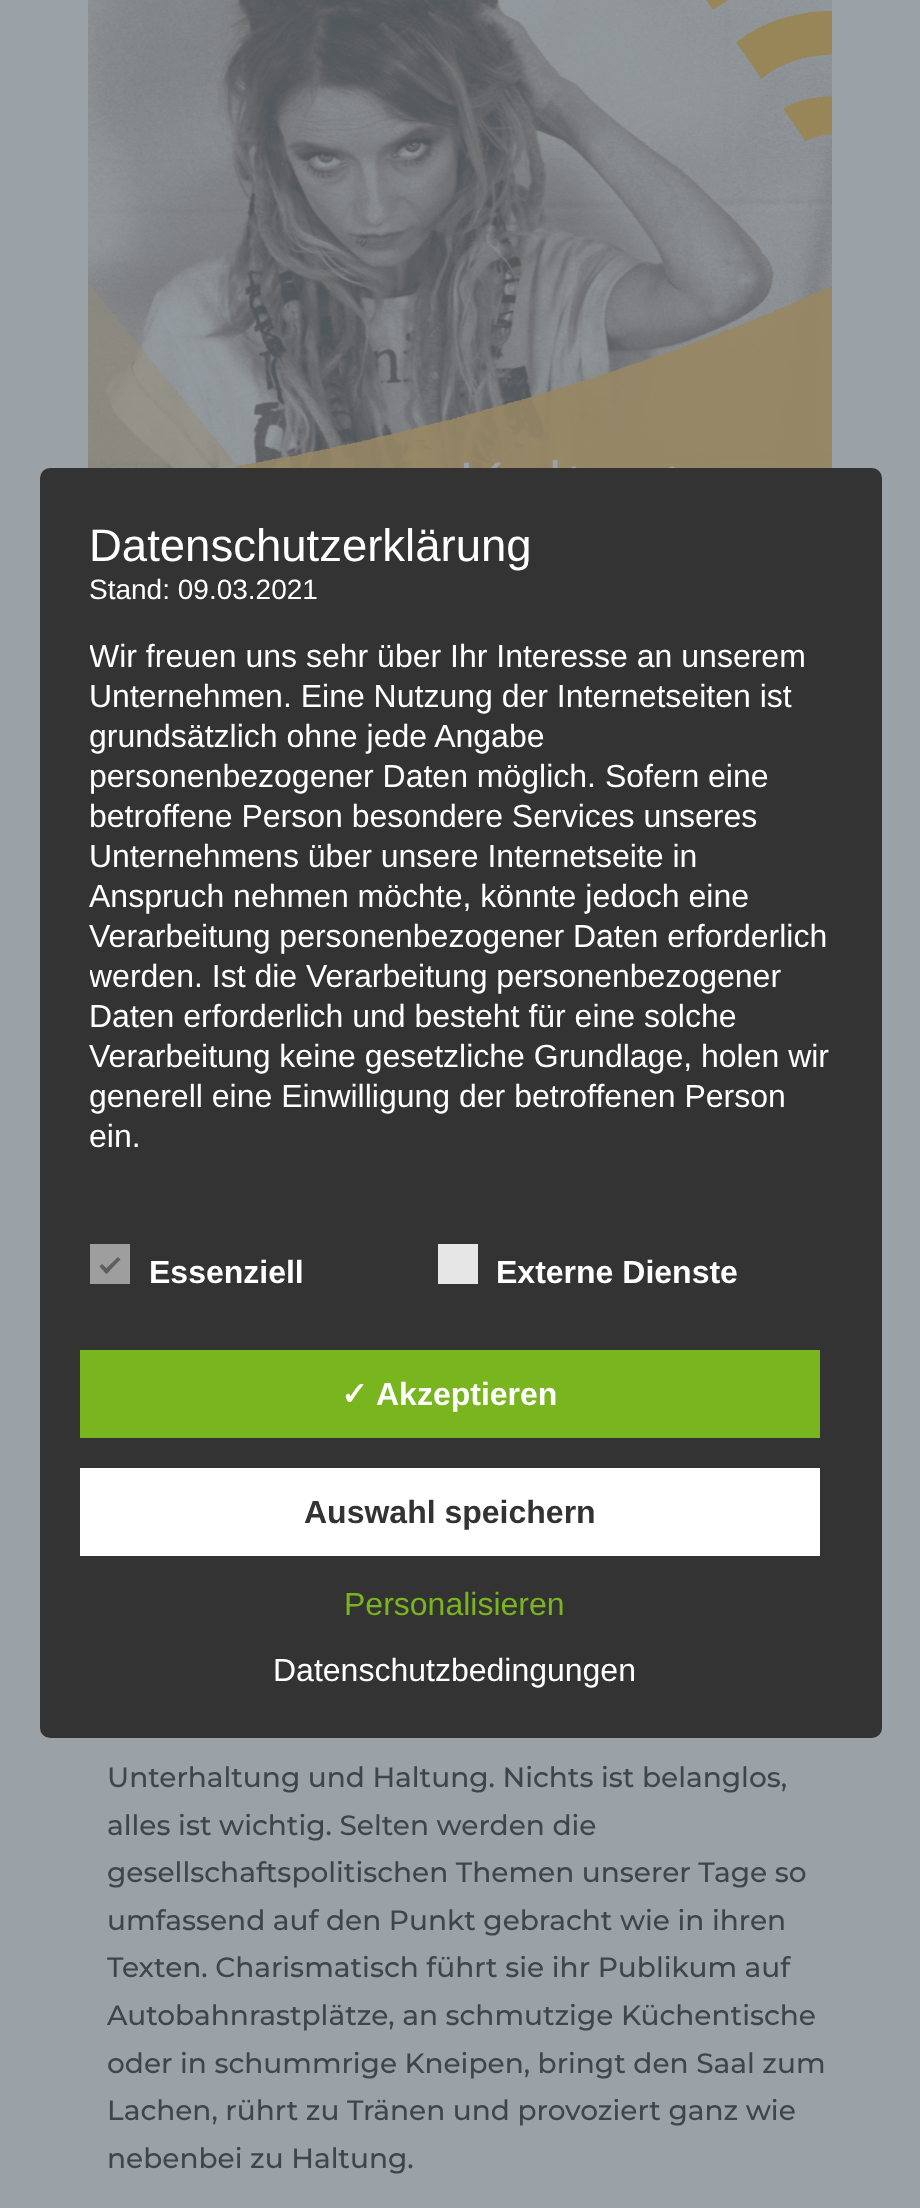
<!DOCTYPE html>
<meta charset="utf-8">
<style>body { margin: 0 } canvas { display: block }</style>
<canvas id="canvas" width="920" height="2208"></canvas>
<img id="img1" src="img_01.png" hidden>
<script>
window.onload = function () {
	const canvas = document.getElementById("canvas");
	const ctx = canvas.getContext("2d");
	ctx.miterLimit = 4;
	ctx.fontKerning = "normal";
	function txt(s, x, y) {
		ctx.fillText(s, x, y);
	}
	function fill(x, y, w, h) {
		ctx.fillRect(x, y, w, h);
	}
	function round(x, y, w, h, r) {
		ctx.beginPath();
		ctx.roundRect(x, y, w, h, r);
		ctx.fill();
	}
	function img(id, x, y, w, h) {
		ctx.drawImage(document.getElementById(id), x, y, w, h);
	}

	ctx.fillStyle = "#9BA2A7";
	fill(0, 0, 920, 2208);
	ctx.fillStyle = "#333333";
	round(40, 468, 842, 1270, 10);
	ctx.fillStyle = "#9E9E9E";
	fill(90, 1244, 40, 40);
	ctx.fillStyle = "#5E5E5E";
	ctx.beginPath();
	ctx.moveTo(118, 1257);
	ctx.lineTo(120.5, 1259.5);
	ctx.lineTo(106.5, 1274);
	ctx.lineTo(103.5, 1271);
	ctx.closePath();
	ctx.fill();
	ctx.beginPath();
	ctx.moveTo(102, 1264);
	ctx.lineTo(109.5, 1271);
	ctx.lineTo(106.5, 1274);
	ctx.lineTo(99.5, 1266.5);
	ctx.closePath();
	ctx.fill();
	ctx.fillStyle = "#E6E6E6";
	fill(438, 1244, 40, 40);
	ctx.fillStyle = "#79B51F";
	fill(80, 1350, 740, 88);
	ctx.fillStyle = "#FFFFFF";
	fill(80, 1468, 740, 88);
	img("img1", 88, 0, 744, 468);
	ctx.font = "45.5px Liberation Sans";
	txt("Datenschutzerklärung", 89, 561);
	ctx.font = "28px Liberation Sans";
	txt("Stand: 09.03.2021", 89, 599);
	ctx.save();
	ctx.beginPath();
	ctx.rect(90, 518, 762, 662);
	ctx.clip();
	ctx.font = "32px Liberation Sans";
	txt("Wir freuen uns sehr über Ihr Interesse an unserem", 89, 667);
	ctx.restore();
	ctx.font = "32px Liberation Sans";
	txt("Unternehmen. Eine Nutzung der Internetseiten ist", 89, 707);
	txt("grundsätzlich ohne jede Angabe", 89, 747);
	txt("personenbezogener Daten möglich. Sofern eine", 89, 787);
	txt("betroffene Person besondere Services unseres", 89, 827);
	txt("Unternehmens über unsere Internetseite in", 89, 867);
	txt("Anspruch nehmen möchte, könnte jedoch eine", 89, 907);
	txt("Verarbeitung personenbezogener Daten erforderlich", 89, 947);
	ctx.save();
	ctx.beginPath();
	ctx.rect(90, 518, 762, 662);
	ctx.clip();
	txt("werden. Ist die Verarbeitung personenbezogener", 89, 987);
	ctx.restore();
	txt("Daten erforderlich und besteht für eine solche", 89, 1027);
	txt("Verarbeitung keine gesetzliche Grundlage, holen wir", 89, 1067);
	txt("generell eine Einwilligung der betroffenen Person", 89, 1107);
	txt("ein.", 89, 1147);
	ctx.font = "bold 32px Liberation Sans";
	txt("Essenziell", 149, 1283);
	txt("Externe Dienste", 496, 1283);
	ctx.font = "bold 32px DejaVu Sans";
	txt("✓", 341, 1405);
	ctx.font = "bold 32px Liberation Sans";
	txt("Akzeptieren", 376, 1405);
	ctx.fillStyle = "#333333";
	txt("Auswahl speichern", 304, 1523);
	ctx.font = "32px Liberation Sans";
	ctx.fillStyle = "#79B51F";
	txt("Personalisieren", 344, 1615);
	ctx.fillStyle = "#FFFFFF";
	txt("Datenschutzbedingungen", 273, 1681);
	ctx.font = "500 28px Montserrat";
	ctx.fillStyle = "#3F464B";
	txt("Unterhaltung und Haltung. Nichts ist belanglos,", 107, 1787);
	txt("alles ist wichtig. Selten werden die", 107, 1835);
	txt("gesellschaftspolitischen Themen unserer Tage so", 107, 1882);
	txt("umfassend auf den Punkt gebracht wie in ihren", 107, 1930);
	txt("Texten. Charismatisch führt sie ihr Publikum auf", 107, 1977);
	txt("Autobahnrastplätze, an schmutzige Küchentische", 107, 2025);
	txt("oder in schummrige Kneipen, bringt den Saal zum", 107, 2073);
	txt("Lachen, rührt zu Tränen und provoziert ganz wie", 107, 2120);
	txt("nebenbei zu Haltung.", 107, 2168);
};
</script>
